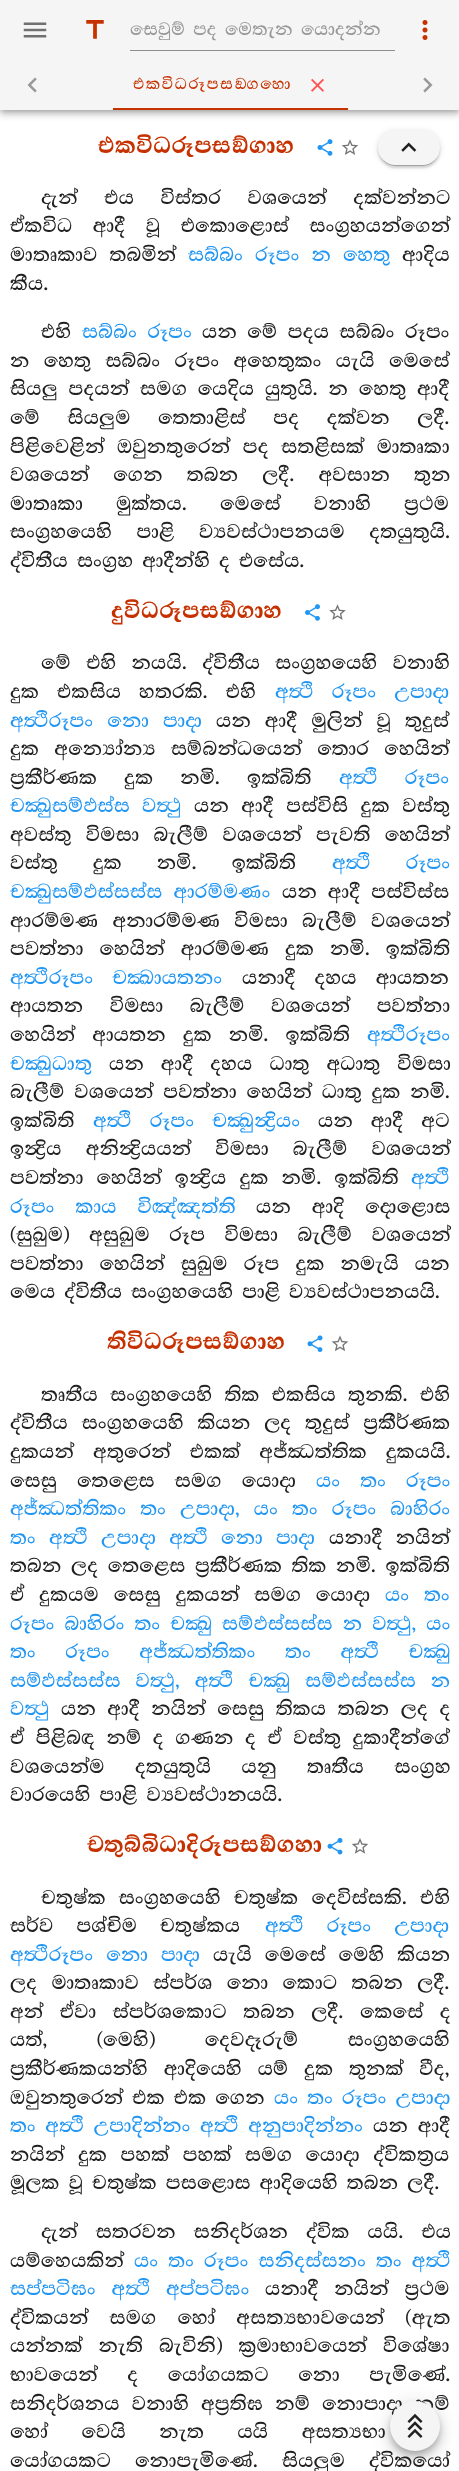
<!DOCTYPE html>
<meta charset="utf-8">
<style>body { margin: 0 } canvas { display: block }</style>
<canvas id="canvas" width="459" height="2471"></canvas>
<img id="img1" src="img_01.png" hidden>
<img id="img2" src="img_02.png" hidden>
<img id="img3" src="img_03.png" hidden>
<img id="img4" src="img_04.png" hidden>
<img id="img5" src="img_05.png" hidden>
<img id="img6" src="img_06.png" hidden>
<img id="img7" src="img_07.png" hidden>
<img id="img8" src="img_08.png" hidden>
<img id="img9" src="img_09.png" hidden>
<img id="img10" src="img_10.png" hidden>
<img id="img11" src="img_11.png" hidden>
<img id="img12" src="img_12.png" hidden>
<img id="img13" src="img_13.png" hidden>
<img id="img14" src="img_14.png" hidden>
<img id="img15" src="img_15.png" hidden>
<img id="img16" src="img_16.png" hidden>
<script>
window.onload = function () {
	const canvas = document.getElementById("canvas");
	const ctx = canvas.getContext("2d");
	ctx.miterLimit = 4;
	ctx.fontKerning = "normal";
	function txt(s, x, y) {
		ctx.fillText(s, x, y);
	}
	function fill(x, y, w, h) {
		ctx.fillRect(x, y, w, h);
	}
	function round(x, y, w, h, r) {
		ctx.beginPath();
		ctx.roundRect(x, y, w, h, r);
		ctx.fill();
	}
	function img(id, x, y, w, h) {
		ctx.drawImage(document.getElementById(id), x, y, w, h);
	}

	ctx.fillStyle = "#FFFFFF";
	fill(0, 0, 459, 2471);
	ctx.fillStyle = "rgba(0, 0, 0, 0.12)";
	ctx.filter = "blur(6px)";
	ctx.beginPath();
	ctx.rect(0, 1, 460, 110);
	ctx.fill();
	ctx.filter = "none";
	ctx.fillStyle = "rgba(0, 0, 0, 0.14)";
	ctx.filter = "blur(3px)";
	ctx.beginPath();
	ctx.rect(0, 5, 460, 110);
	ctx.fill();
	ctx.filter = "none";
	ctx.fillStyle = "rgba(0, 0, 0, 0.2)";
	ctx.filter = "blur(2.5px)";
	ctx.beginPath();
	ctx.rect(1, 4, 458, 107);
	ctx.fill();
	ctx.filter = "none";
	ctx.fillStyle = "#F5F5F5";
	fill(0, 0, 459, 110);
	img("img1", 23, 22, 24, 16);
	img("img2", 86, 20, 18, 19);
	ctx.fillStyle = "#8E8E8E";
	fill(130, 50, 265, 1);
	img("img3", 422, 20, 6, 20);
	img("img4", 27, 77, 10, 16);
	img("img5", 311, 78, 13, 14);
	ctx.fillStyle = "#C63100";
	fill(113, 108, 235, 2);
	img("img6", 423, 77, 10, 16);
	ctx.fillStyle = "rgba(0, 0, 0, 0.12)";
	ctx.filter = "blur(3px)";
	ctx.beginPath();
	ctx.roundRect(378, 131, 62, 35, 17.5);
	ctx.fill();
	ctx.filter = "none";
	ctx.fillStyle = "rgba(0, 0, 0, 0.14)";
	ctx.filter = "blur(1px)";
	ctx.beginPath();
	ctx.roundRect(378, 133, 62, 35, 17.5);
	ctx.fill();
	ctx.filter = "none";
	ctx.fillStyle = "rgba(0, 0, 0, 0.2)";
	ctx.filter = "blur(0.5px)";
	ctx.beginPath();
	ctx.roundRect(380, 136, 58, 30, 15);
	ctx.fill();
	ctx.filter = "none";
	ctx.fillStyle = "#F5F5F5";
	round(378, 130, 62, 35, 17.5);
	img("img7", 401, 142, 16, 10);
	img("img8", 317, 139, 16, 17);
	img("img9", 341, 139, 18, 16);
	img("img10", 305, 604, 15, 17);
	img("img11", 329, 604, 17, 16);
	img("img12", 307, 1335, 16, 17);
	img("img13", 331, 1335, 18, 16);
	img("img14", 327, 1838, 16, 17);
	img("img15", 352, 1838, 16, 16);
	ctx.fillStyle = "rgba(0, 0, 0, 0.12)";
	ctx.filter = "blur(11px)";
	ctx.beginPath();
	ctx.roundRect(390, 2403, 50, 50, 25);
	ctx.fill();
	ctx.filter = "none";
	ctx.fillStyle = "rgba(0, 0, 0, 0.14)";
	ctx.filter = "blur(6px)";
	ctx.beginPath();
	ctx.roundRect(390, 2409, 50, 50, 25);
	ctx.fill();
	ctx.filter = "none";
	ctx.fillStyle = "rgba(0, 0, 0, 0.2)";
	ctx.filter = "blur(3px)";
	ctx.beginPath();
	ctx.roundRect(391, 2406, 48, 48, 24);
	ctx.fill();
	ctx.filter = "none";
	ctx.font = "300 20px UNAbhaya";
	ctx.fillStyle = "#989898";
	txt("සෙවුම් පද මෙතැන යොදන්න", 130, 35);
	ctx.letterSpacing = "1.5px";
	ctx.font = "300 17.5px UNAbhaya";
	ctx.fillStyle = "#C63100";
	txt("එකවිධරූපසඞ‍්ගහො", 133, 89);
	ctx.letterSpacing = "0px";
	ctx.font = "600 26px Abhaya Libre";
	txt("එකවිධරූපසඞ්ගහො", 98, 153);
	ctx.wordSpacing = "17.5px";
	ctx.font = "300 22px UNAbhaya";
	ctx.fillStyle = "#212121";
	txt("දැන් එය විස්තර වශයෙන් දක්වන්නට", 41, 204);
	ctx.wordSpacing = "11.5px";
	txt("ඒකවිධ ආදී වූ එකොළොස් සංග්‍රහයන්ගෙන්", 10, 232);
	ctx.wordSpacing = "3px";
	txt("මාතෘකාව තබමින්", 10, 261);
	ctx.fillStyle = "#2196F3";
	txt("සබ්බං රූපං න හෙතු", 188, 261);
	ctx.wordSpacing = "0px";
	ctx.fillStyle = "#212121";
	txt("ආදිය", 402, 261);
	txt("කීය.", 10, 290);
	txt("එහි", 41, 338);
	ctx.wordSpacing = "1.5px";
	ctx.fillStyle = "#2196F3";
	txt("සබ්බං රූපං", 82, 338);
	ctx.fillStyle = "#212121";
	txt("යන මේ පදය සබ්බං රූපං", 202, 338);
	ctx.wordSpacing = "5.25px";
	txt("න හෙතු සබ්බං රූපං අහෙතුකං යැයි මෙසේ", 10, 367);
	ctx.wordSpacing = "1.75px";
	txt("සියලු පදයන් සමග යෙදිය යුතුයි. න හෙතු ආදී", 10, 395);
	ctx.wordSpacing = "18.5px";
	txt("මේ සියලුම තෙතාළිස් පද දක්වන ලදී.", 10, 424);
	ctx.wordSpacing = "3.5px";
	txt("පිළිවෙළින් ඔවුනතුරෙන් පද සතළිසක් මාතෘකා", 10, 453);
	ctx.wordSpacing = "15px";
	txt("වශයෙන් ගෙන තබන ලදී. අවසාන තුන", 10, 481);
	ctx.wordSpacing = "24px";
	txt("මාතෘකා මුක්තය. මෙසේ වනාහි ප්‍රථම", 10, 510);
	ctx.wordSpacing = "15.5px";
	txt("සංග්‍රහයෙහි පාළි ව්‍යවස්ථාපනයම දතයුතුයි.", 10, 538);
	ctx.wordSpacing = "0px";
	txt("ද්විතීය සංග්‍රහ ආදීන්හි ද එසේය.", 10, 567);
	ctx.font = "600 26px Abhaya Libre";
	ctx.fillStyle = "#C63100";
	txt("දුවිධරූපසඞ්ගහො", 111, 618);
	ctx.wordSpacing = "6.25px";
	ctx.font = "300 22px UNAbhaya";
	ctx.fillStyle = "#212121";
	txt("මේ එහි නයයි. ද්විතීය සංග්‍රහයෙහි වනාහි", 41, 669);
	ctx.wordSpacing = "9px";
	txt("දුක එකසිය හතරකි. එහි", 10, 698);
	ctx.fillStyle = "#2196F3";
	txt("අත්‍ථි රූපං උපාදා", 275, 698);
	ctx.wordSpacing = "5px";
	txt("අත්‍ථිරූපං නො පාදා", 10, 727);
	ctx.fillStyle = "#212121";
	txt("යන ආදී මුලින් වූ තුදුස්", 216, 727);
	ctx.wordSpacing = "6.25px";
	txt("දුක අන්‍යෝන්‍ය සම්බන්ධයෙන් තොර හෙයින්", 10, 755);
	ctx.wordSpacing = "18px";
	txt("ප්‍රකීර්ණක දුක නමි. ඉක්බිති", 10, 784);
	ctx.fillStyle = "#2196F3";
	txt("අත්‍ථි රූපං", 339, 784);
	ctx.wordSpacing = "3px";
	txt("චක්‍ඛුසම්ඵස්ස වත්‍ථු", 10, 812);
	ctx.wordSpacing = "3.5px";
	ctx.fillStyle = "#212121";
	txt("යන ආදී පස්විසි දුක වස්තු", 194, 812);
	ctx.wordSpacing = "5.25px";
	txt("අවස්තු විමසා බැලීම් වශයෙන් පැවති හෙයින්", 10, 841);
	ctx.wordSpacing = "26px";
	txt("වස්තු දුක නමි. ඉක්බිති", 10, 869);
	ctx.fillStyle = "#2196F3";
	txt("අත්‍ථි රූපං", 332, 869);
	ctx.wordSpacing = "2px";
	txt("චක්‍ඛුසම්ඵස්සස්ස ආරම්මණං", 10, 898);
	ctx.fillStyle = "#212121";
	txt("යන ආදී පස්විස්ස", 282, 898);
	ctx.wordSpacing = "5.25px";
	txt("ආරම්මණ අනාරම්මණ විමසා බැලීම් වශයෙන්", 10, 927);
	ctx.wordSpacing = "7px";
	txt("පවත්නා හෙයින් ආරම්මණ දුක නමි. ඉක්බිති", 10, 955);
	ctx.wordSpacing = "10px";
	ctx.fillStyle = "#2196F3";
	txt("අත්‍ථිරූපං චක්‍ඛායතනං", 10, 984);
	ctx.fillStyle = "#212121";
	txt("යනාදී දහය ආයතන", 242, 984);
	ctx.wordSpacing = "17.5px";
	txt("ආයතන විමසා බැලීම් වශයෙන් පවත්නා", 10, 1012);
	ctx.wordSpacing = "8px";
	txt("හෙයින් ආයතන දුක නමි. ඉක්බිති", 10, 1041);
	ctx.wordSpacing = "0px";
	ctx.fillStyle = "#2196F3";
	txt("අත්‍ථිරූපං", 367, 1041);
	txt("චක්‍ඛුධාතු", 10, 1070);
	ctx.wordSpacing = "8px";
	ctx.fillStyle = "#212121";
	txt("යන ආදී දහය ධාතු අධාතු විමසා", 109, 1070);
	ctx.wordSpacing = "0.75px";
	txt("බැලීම් වශයෙන් පවත්නා හෙයින් ධාතු දුක නමි.", 10, 1098);
	ctx.wordSpacing = "0px";
	txt("ඉක්බිති", 10, 1127);
	ctx.wordSpacing = "9px";
	ctx.fillStyle = "#2196F3";
	txt("අත්‍ථි රූපං චක්‍ඛුන්‍ද්‍රියං", 93, 1127);
	ctx.fillStyle = "#212121";
	txt("යන ආදී අට", 318, 1127);
	ctx.wordSpacing = "15px";
	txt("ඉන්‍ද්‍රිය අනින්‍ද්‍රියයන් විමසා බැලීම් වශයෙන්", 10, 1155);
	ctx.wordSpacing = "4px";
	txt("පවත්නා හෙයින් ඉන්‍ද්‍රිය දුක නමි. ඉක්බිති", 10, 1184);
	ctx.wordSpacing = "0px";
	ctx.fillStyle = "#2196F3";
	txt("අත්‍ථි", 411, 1184);
	ctx.wordSpacing = "12px";
	txt("රූපං කාය විඤ්ඤත්ති", 10, 1213);
	ctx.fillStyle = "#212121";
	txt("යන ආදි දොළොස", 256, 1213);
	ctx.wordSpacing = "10.5px";
	txt("(සුඛුම) අසුඛුම රූප විමසා බැලීම් වශයෙන්", 10, 1241);
	ctx.wordSpacing = "7px";
	txt("පවත්නා හෙයින් සුඛුම රූප දුක නමැයි යන", 10, 1270);
	ctx.wordSpacing = "0px";
	txt("මෙය ද්විතීය සංග්‍රහයෙහි පාළි ව්‍යවස්ථාපනයයි.", 10, 1298);
	ctx.font = "600 26px Abhaya Libre";
	ctx.fillStyle = "#C63100";
	txt("තිවිධරූපසඞ්ගහො", 107, 1349);
	ctx.wordSpacing = "3.25px";
	ctx.font = "300 22px UNAbhaya";
	ctx.fillStyle = "#212121";
	txt("තෘතීය සංග්‍රහයෙහි තික එකසිය තුනකි. එහි", 41, 1401);
	ctx.wordSpacing = "4.75px";
	txt("ද්විතීය සංග්‍රහයෙහි කියන ලද තුදුස් ප්‍රකීර්ණක", 10, 1429);
	ctx.wordSpacing = "10px";
	txt("දුකයන් අතුරෙන් එකක් අජ්ඣත්තික දුකයයි.", 10, 1458);
	ctx.wordSpacing = "11px";
	txt("සෙසු තෙළෙස සමග යොදා", 10, 1487);
	ctx.fillStyle = "#2196F3";
	txt("යං තං රූපං", 316, 1487);
	ctx.wordSpacing = "5px";
	txt("අජ්ඣත්තිකං තං උපාදා, යං තං රූපං බාහිරං", 10, 1515);
	ctx.wordSpacing = "4.25px";
	txt("තං අත්‍ථි උපාදා අත්‍ථි නො පාදා", 10, 1544);
	ctx.fillStyle = "#212121";
	txt("යනාදී නයින්", 329, 1544);
	ctx.wordSpacing = "0.5px";
	txt("තබන ලද තෙළෙස ප්‍රකීර්ණක තික නමි. ඉක්බිති", 10, 1572);
	ctx.wordSpacing = "5.75px";
	txt("ඒ දුකයම සෙසු දුකයන් සමග යොදා", 10, 1601);
	ctx.fillStyle = "#2196F3";
	txt("යං තං", 385, 1601);
	ctx.wordSpacing = "1px";
	txt("රූපං බාහිරං තං චක්‍ඛු සම්ඵස්සස්ස න වත්‍ථු, යං", 10, 1630);
	ctx.wordSpacing = "20.5px";
	txt("තං රූපං අජ්ඣත්තිකං තං අත්‍ථි චක්‍ඛු", 10, 1658);
	ctx.wordSpacing = "6px";
	txt("සම්ඵස්සස්ස වත්‍ථු, අත්‍ථි චක්‍ඛු සම්ඵස්සස්ස න", 10, 1687);
	ctx.wordSpacing = "0px";
	txt("වත්‍ථු", 10, 1715);
	ctx.wordSpacing = "2.5px";
	ctx.fillStyle = "#212121";
	txt("යන ආදී නයින් සෙසු තිකය තබන ලද ද", 61, 1715);
	txt("ඒ පිළිබඳ නම් ද ගණන ද ඒ වස්තු දුකාදීන්ගේ", 10, 1744);
	ctx.wordSpacing = "21.5px";
	txt("වශයෙන්ම දතයුතුයි යනු තෘතීය සංග්‍රහ", 10, 1773);
	ctx.wordSpacing = "0px";
	txt("වාරයෙහි පාළි ව්‍යවස්ථානයයි.", 10, 1801);
	ctx.font = "600 26px Abhaya Libre";
	ctx.fillStyle = "#C63100";
	txt("චතුබ්බිධාදිරූපසඞ්ගහා", 87, 1852);
	ctx.wordSpacing = "4px";
	ctx.font = "300 22px UNAbhaya";
	ctx.fillStyle = "#212121";
	txt("චතුෂ්ක සංග්‍රහයෙහි චතුෂ්ක දෙවිස්සකි. එහි", 41, 1904);
	ctx.wordSpacing = "14px";
	txt("සර්ව පශ්චිම චතුෂ්කය", 10, 1932);
	ctx.fillStyle = "#2196F3";
	txt("අත්‍ථි රූපං උපාදා", 265, 1932);
	ctx.wordSpacing = "4px";
	txt("අත්‍ථිරූපං නො පාදා", 10, 1961);
	ctx.fillStyle = "#212121";
	txt("යැයි මෙසේ මෙහි කියන", 213, 1961);
	ctx.wordSpacing = "5.25px";
	txt("ලද මාතෘකාව ස්පර්ශ නො කොට තබන ලදී.", 10, 1989);
	ctx.wordSpacing = "7.5px";
	txt("අන් ඒවා ස්පර්ශකොට තබන ලදී. කෙසේ ද", 10, 2018);
	ctx.wordSpacing = "40.5px";
	txt("යත්, (මෙහි) දෙවදෑරුම් සංග්‍රහයෙහි", 10, 2046);
	ctx.wordSpacing = "6.75px";
	txt("ප්‍රකීර්ණකයන්හි ආදියෙහි යම් දුක තුනක් වීද,", 10, 2075);
	ctx.wordSpacing = "0px";
	txt("ඔවුනතුරෙන් එක එක ගෙන", 10, 2104);
	ctx.fillStyle = "#2196F3";
	txt("යං තං රූපං උපාදා", 274, 2104);
	ctx.wordSpacing = "0.5px";
	txt("තං අත්‍ථි උපාදින්නං අත්‍ථි අනුපාදින්නං", 10, 2132);
	ctx.wordSpacing = "1px";
	ctx.fillStyle = "#212121";
	txt("යන ආදී", 373, 2132);
	ctx.wordSpacing = "4.5px";
	txt("නයින් දුක පහක් පහක් සමග යොදා ද්විකත්‍රය", 10, 2161);
	ctx.wordSpacing = "0px";
	txt("මූලක වූ චතුෂ්ක පසළොස ආදියෙහි තබන ලදී.", 10, 2189);
	ctx.wordSpacing = "9px";
	txt("දැන් සතරවන සනිදර්ශන ද්වික යයි. එය", 41, 2238);
	ctx.wordSpacing = "0px";
	txt("යම්හෙයකින්", 10, 2267);
	ctx.wordSpacing = "1px";
	ctx.fillStyle = "#2196F3";
	txt("යං තං රූපං සනිදස්සනං තං අත්‍ථි", 134, 2267);
	ctx.wordSpacing = "6.75px";
	txt("සප්පටිඝං අත්‍ථි අප්පටිඝං", 10, 2295);
	ctx.fillStyle = "#212121";
	txt("යනාදී නයින් ප්‍රථම", 265, 2295);
	ctx.wordSpacing = "12px";
	txt("ද්විකයන් සමග හෝ අසත්‍යභාවයෙන් (ඇත", 10, 2324);
	ctx.wordSpacing = "7px";
	txt("යන්නක් නැති බැවිනි) ක්‍රමාභාවයෙන් විශේෂා", 10, 2352);
	ctx.wordSpacing = "20.5px";
	txt("භාවයෙන් ද යෝගයකට නො පැමිණේ.", 10, 2381);
	ctx.wordSpacing = "3px";
	txt("සනිදර්ශනය වනාහි අප්‍රතිඝ නම් නොපාදා නම්", 10, 2410);
	ctx.wordSpacing = "24.5px";
	txt("හෝ වෙයි නැත යයි අසත්‍යභා", 10, 2438);
	ctx.wordSpacing = "15px";
	txt("යෝගයකට නොපැමිණේ. සියලුම ද්විකයෝ", 10, 2467);
	ctx.fillStyle = "#F5F5F5";
	ctx.beginPath();
	ctx.arc(415, 2426, 25, 0, Math.PI * 2);
	ctx.fill();
	img("img16", 407, 2413, 16, 25);
};
</script>
